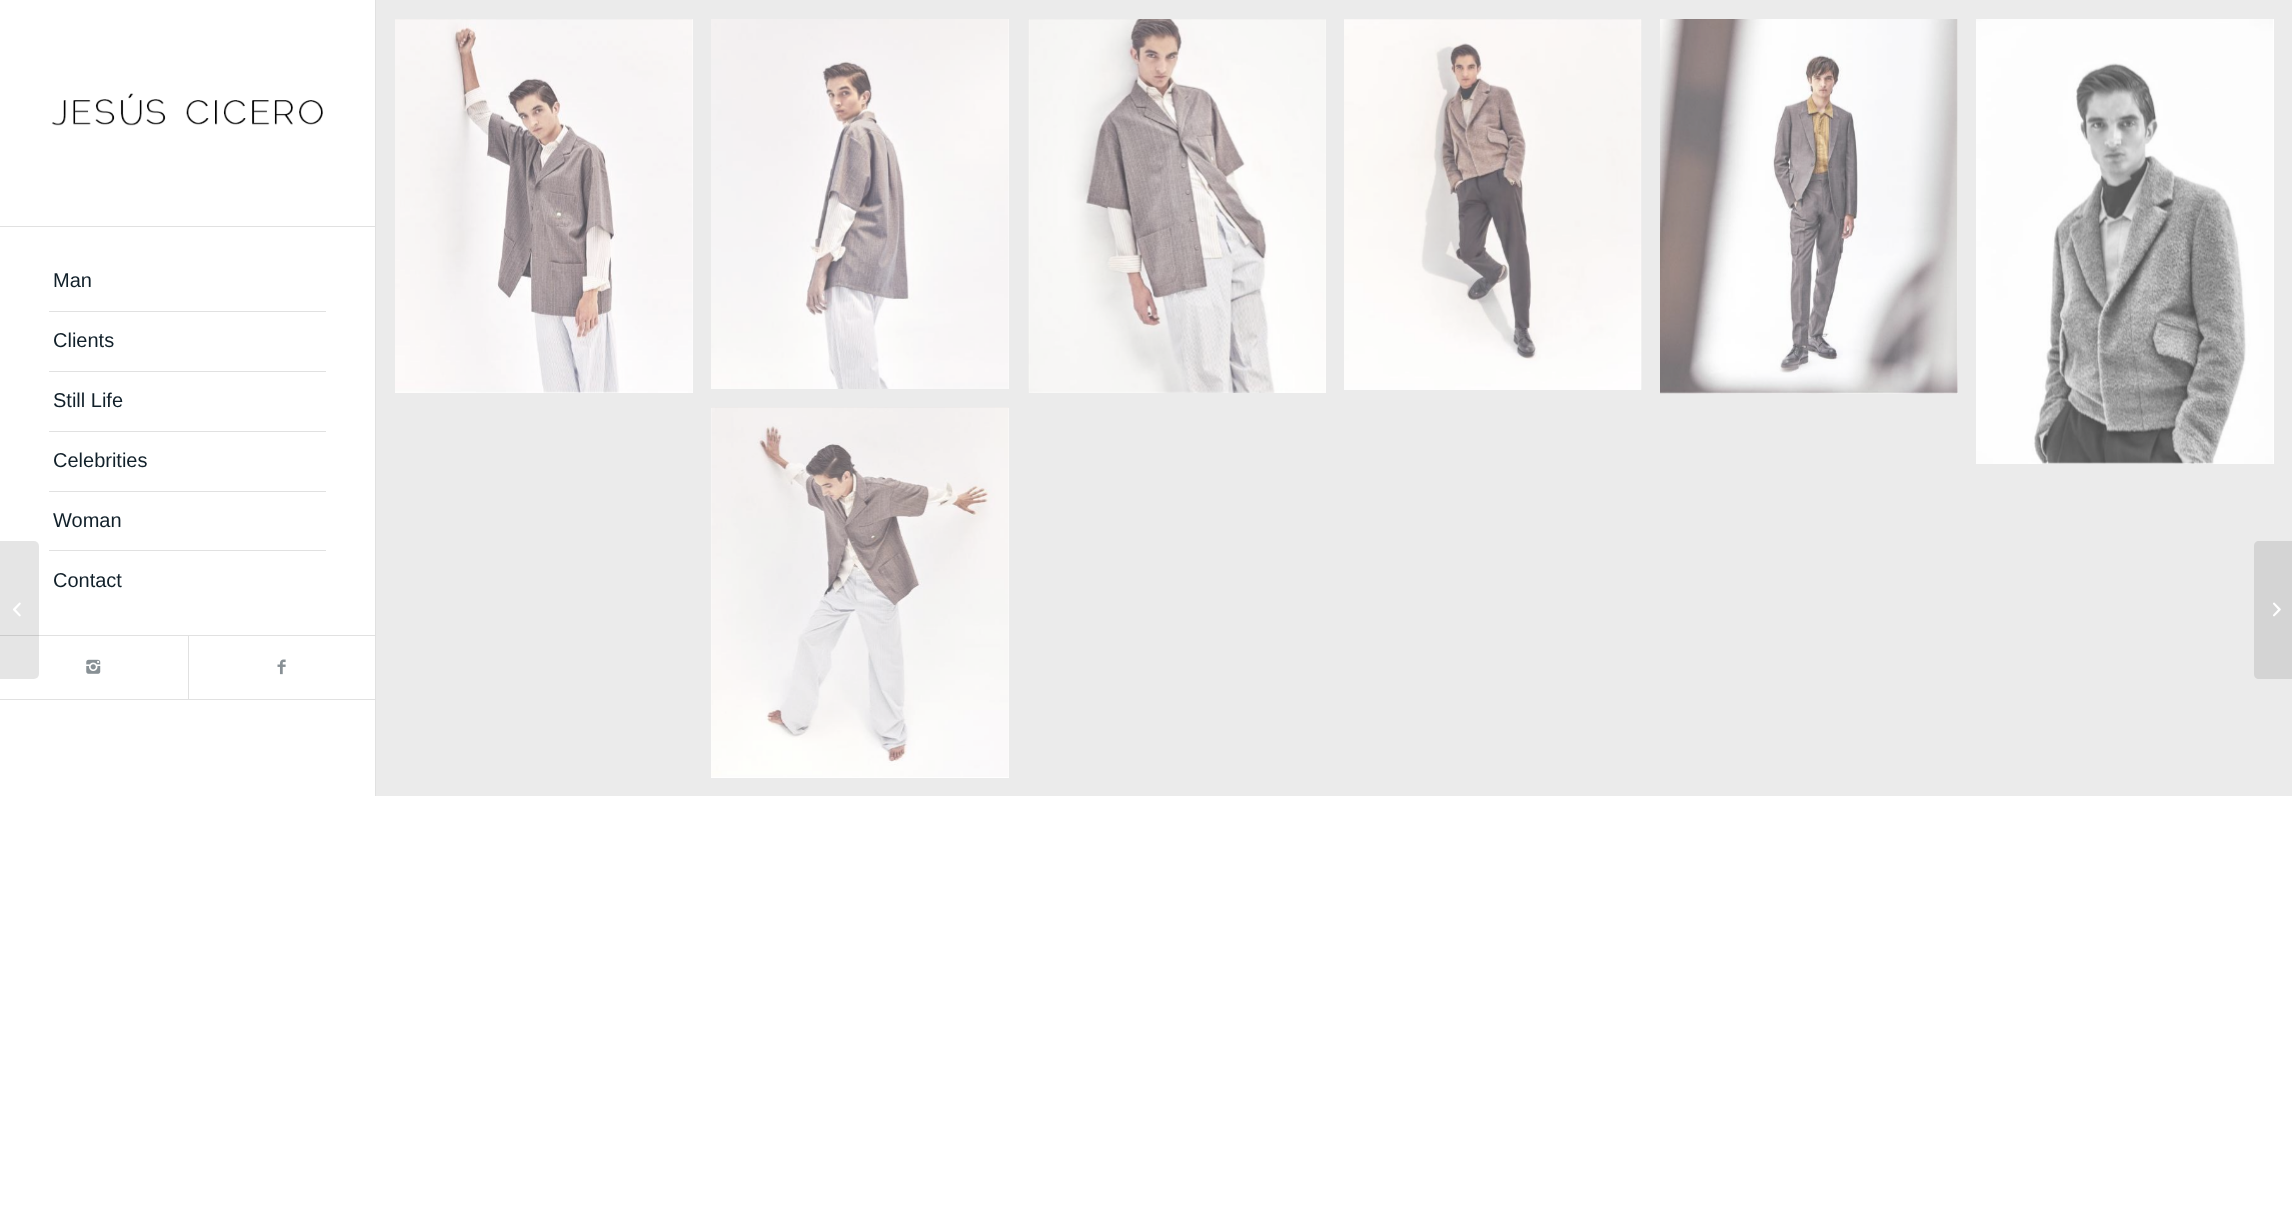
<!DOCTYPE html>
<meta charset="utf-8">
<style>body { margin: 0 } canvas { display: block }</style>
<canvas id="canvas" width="2292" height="1219"></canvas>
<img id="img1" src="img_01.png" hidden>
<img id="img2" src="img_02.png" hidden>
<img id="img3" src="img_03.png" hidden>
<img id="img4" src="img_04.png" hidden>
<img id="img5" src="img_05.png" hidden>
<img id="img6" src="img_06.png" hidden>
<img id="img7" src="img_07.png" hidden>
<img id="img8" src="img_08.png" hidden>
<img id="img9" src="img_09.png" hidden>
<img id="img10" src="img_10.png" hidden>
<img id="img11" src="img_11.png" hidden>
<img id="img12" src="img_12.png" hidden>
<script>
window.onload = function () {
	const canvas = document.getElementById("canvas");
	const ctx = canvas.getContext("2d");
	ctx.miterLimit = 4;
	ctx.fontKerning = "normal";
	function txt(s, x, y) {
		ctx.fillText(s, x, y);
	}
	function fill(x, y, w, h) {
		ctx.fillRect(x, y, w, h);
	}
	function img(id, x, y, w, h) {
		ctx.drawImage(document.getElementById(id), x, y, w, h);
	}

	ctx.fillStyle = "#FFFFFF";
	fill(0, 0, 2292, 1219);
	ctx.fillStyle = "#E1E1E1";
	fill(0, 699, 375, 1);
	fill(0, 226, 375, 1);
	img("img1", 51, 93, 273, 33);
	fill(49, 311, 277, 1);
	fill(49, 371, 277, 1);
	fill(49, 431, 277, 1);
	fill(49, 491, 277, 1);
	fill(49, 550, 277, 1);
	fill(0, 635, 375, 1);
	img("img2", 86, 659, 15, 15);
	fill(188, 636, 1, 63);
	img("img3", 277, 659, 9, 16);
	fill(375, 0, 1, 796);
	ctx.fillStyle = "#EBEBEB";
	fill(376, 0, 1916, 796);
	ctx.fillStyle = "#FFFFFF";
	fill(395, 19, 298, 374);
	img("img4", 395, 19, 298, 374);
	fill(711, 19, 298, 370);
	img("img5", 711, 19, 298, 370);
	fill(1029, 19, 297, 374);
	img("img6", 1028, 19, 298, 374);
	fill(1344, 19, 297, 371);
	img("img7", 1344, 19, 298, 371);
	fill(1660, 19, 298, 375);
	img("img8", 1660, 19, 298, 375);
	fill(1976, 19, 298, 445);
	img("img9", 1976, 19, 297, 445);
	fill(711, 408, 298, 370);
	img("img10", 711, 407, 298, 370);
	ctx.fillStyle = "rgba(0, 0, 0, 0.1)";
	ctx.beginPath();
	ctx.roundRect(0, 541, 39, 138, [0, 5, 5, 0]);
	ctx.fill();
	img("img11", 13, 602, 8, 15);
	ctx.fillStyle = "#D4D4D4";
	ctx.beginPath();
	ctx.moveTo(2259, 541);
	ctx.lineTo(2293, 541);
	ctx.lineTo(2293, 679);
	ctx.lineTo(2259, 679);
	ctx.bezierCurveTo(2256, 679, 2254, 677, 2254, 674);
	ctx.lineTo(2254, 546);
	ctx.bezierCurveTo(2254, 543, 2256, 541, 2259, 541);
	ctx.closePath();
	ctx.fill();
	img("img12", 2273, 602, 8, 15);
	ctx.font = "20px Liberation Sans";
	ctx.fillStyle = "#11202A";
	txt("Man", 53, 287);
	txt("Clients", 53, 347);
	txt("Still Life", 53, 407);
	txt("Celebrities", 53, 467);
	txt("Woman", 53, 527);
	txt("Contact", 53, 587);
};
</script>
